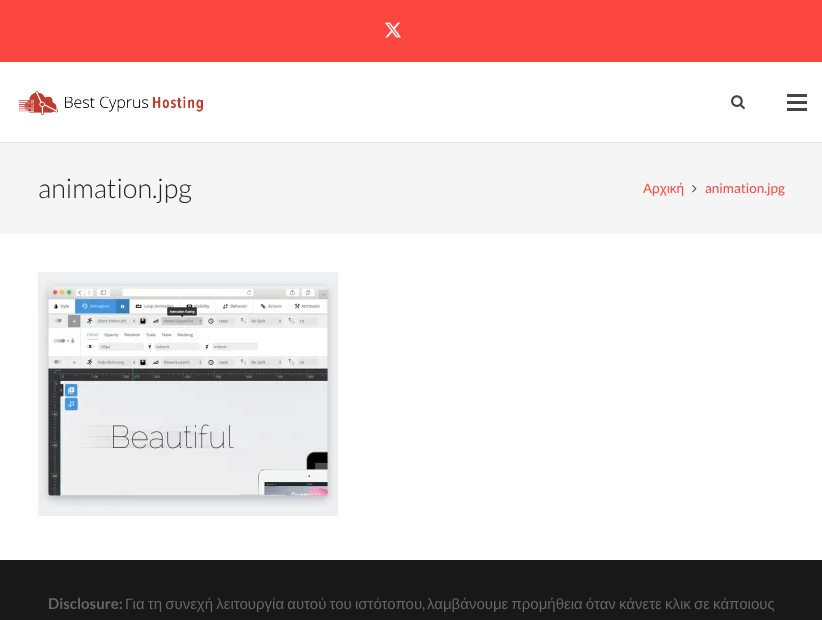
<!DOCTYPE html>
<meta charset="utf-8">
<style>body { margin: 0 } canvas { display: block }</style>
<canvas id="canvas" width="822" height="620"></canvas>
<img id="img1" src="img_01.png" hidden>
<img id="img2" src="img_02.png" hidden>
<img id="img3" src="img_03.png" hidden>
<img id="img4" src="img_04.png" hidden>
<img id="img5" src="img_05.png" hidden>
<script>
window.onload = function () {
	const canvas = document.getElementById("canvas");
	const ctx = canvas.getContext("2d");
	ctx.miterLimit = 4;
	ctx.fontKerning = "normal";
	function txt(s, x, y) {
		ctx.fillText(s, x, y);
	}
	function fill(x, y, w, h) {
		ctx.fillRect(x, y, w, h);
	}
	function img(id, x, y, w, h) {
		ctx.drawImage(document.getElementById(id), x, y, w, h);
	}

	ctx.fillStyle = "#FFFFFF";
	fill(0, 0, 822, 620);
	ctx.fillStyle = "#FE4641";
	fill(0, 0, 822, 62);
	img("img1", 385, 22, 16, 16);
	ctx.fillStyle = "#E1E1E1";
	fill(0, 142, 822, 1);
	img("img2", 18, 91, 185, 25);
	img("img3", 731, 95, 14, 15);
	ctx.fillStyle = "#444444";
	fill(787, 101, 20, 3);
	fill(787, 94, 20, 3);
	fill(787, 108, 20, 3);
	ctx.fillStyle = "#F5F5F5";
	fill(0, 143, 822, 91);
	img("img4", 692, 185, 5, 8);
	img("img5", 38, 272, 300, 244);
	ctx.fillStyle = "#181818";
	fill(0, 560, 822, 60);
	ctx.font = "300 27px Lato";
	ctx.fillStyle = "#222222";
	txt("animation.jpg", 38, 198);
	ctx.font = "13.5px Liberation Sans";
	ctx.fillStyle = "#FE4641";
	txt("Αρχική", 643, 193);
	ctx.font = "13.5px Lato";
	txt("animation.jpg", 705, 193);
	ctx.font = "bold 15px Lato";
	ctx.fillStyle = "#666666";
	txt("Disclosure:", 48, 609);
	ctx.wordSpacing = "-1px";
	ctx.font = "15px Liberation Sans";
	txt("Για τη συνεχή λειτουργία αυτού του ιστότοπου", 125, 609);
	ctx.wordSpacing = "0px";
	ctx.font = "15px Lato";
	txt(",", 422, 609);
	ctx.wordSpacing = "-1px";
	ctx.font = "15px Liberation Sans";
	txt("λαμβάνουμε προμήθεια όταν κάνετε κλικ σε κάποιους", 427, 609);
};
</script>
